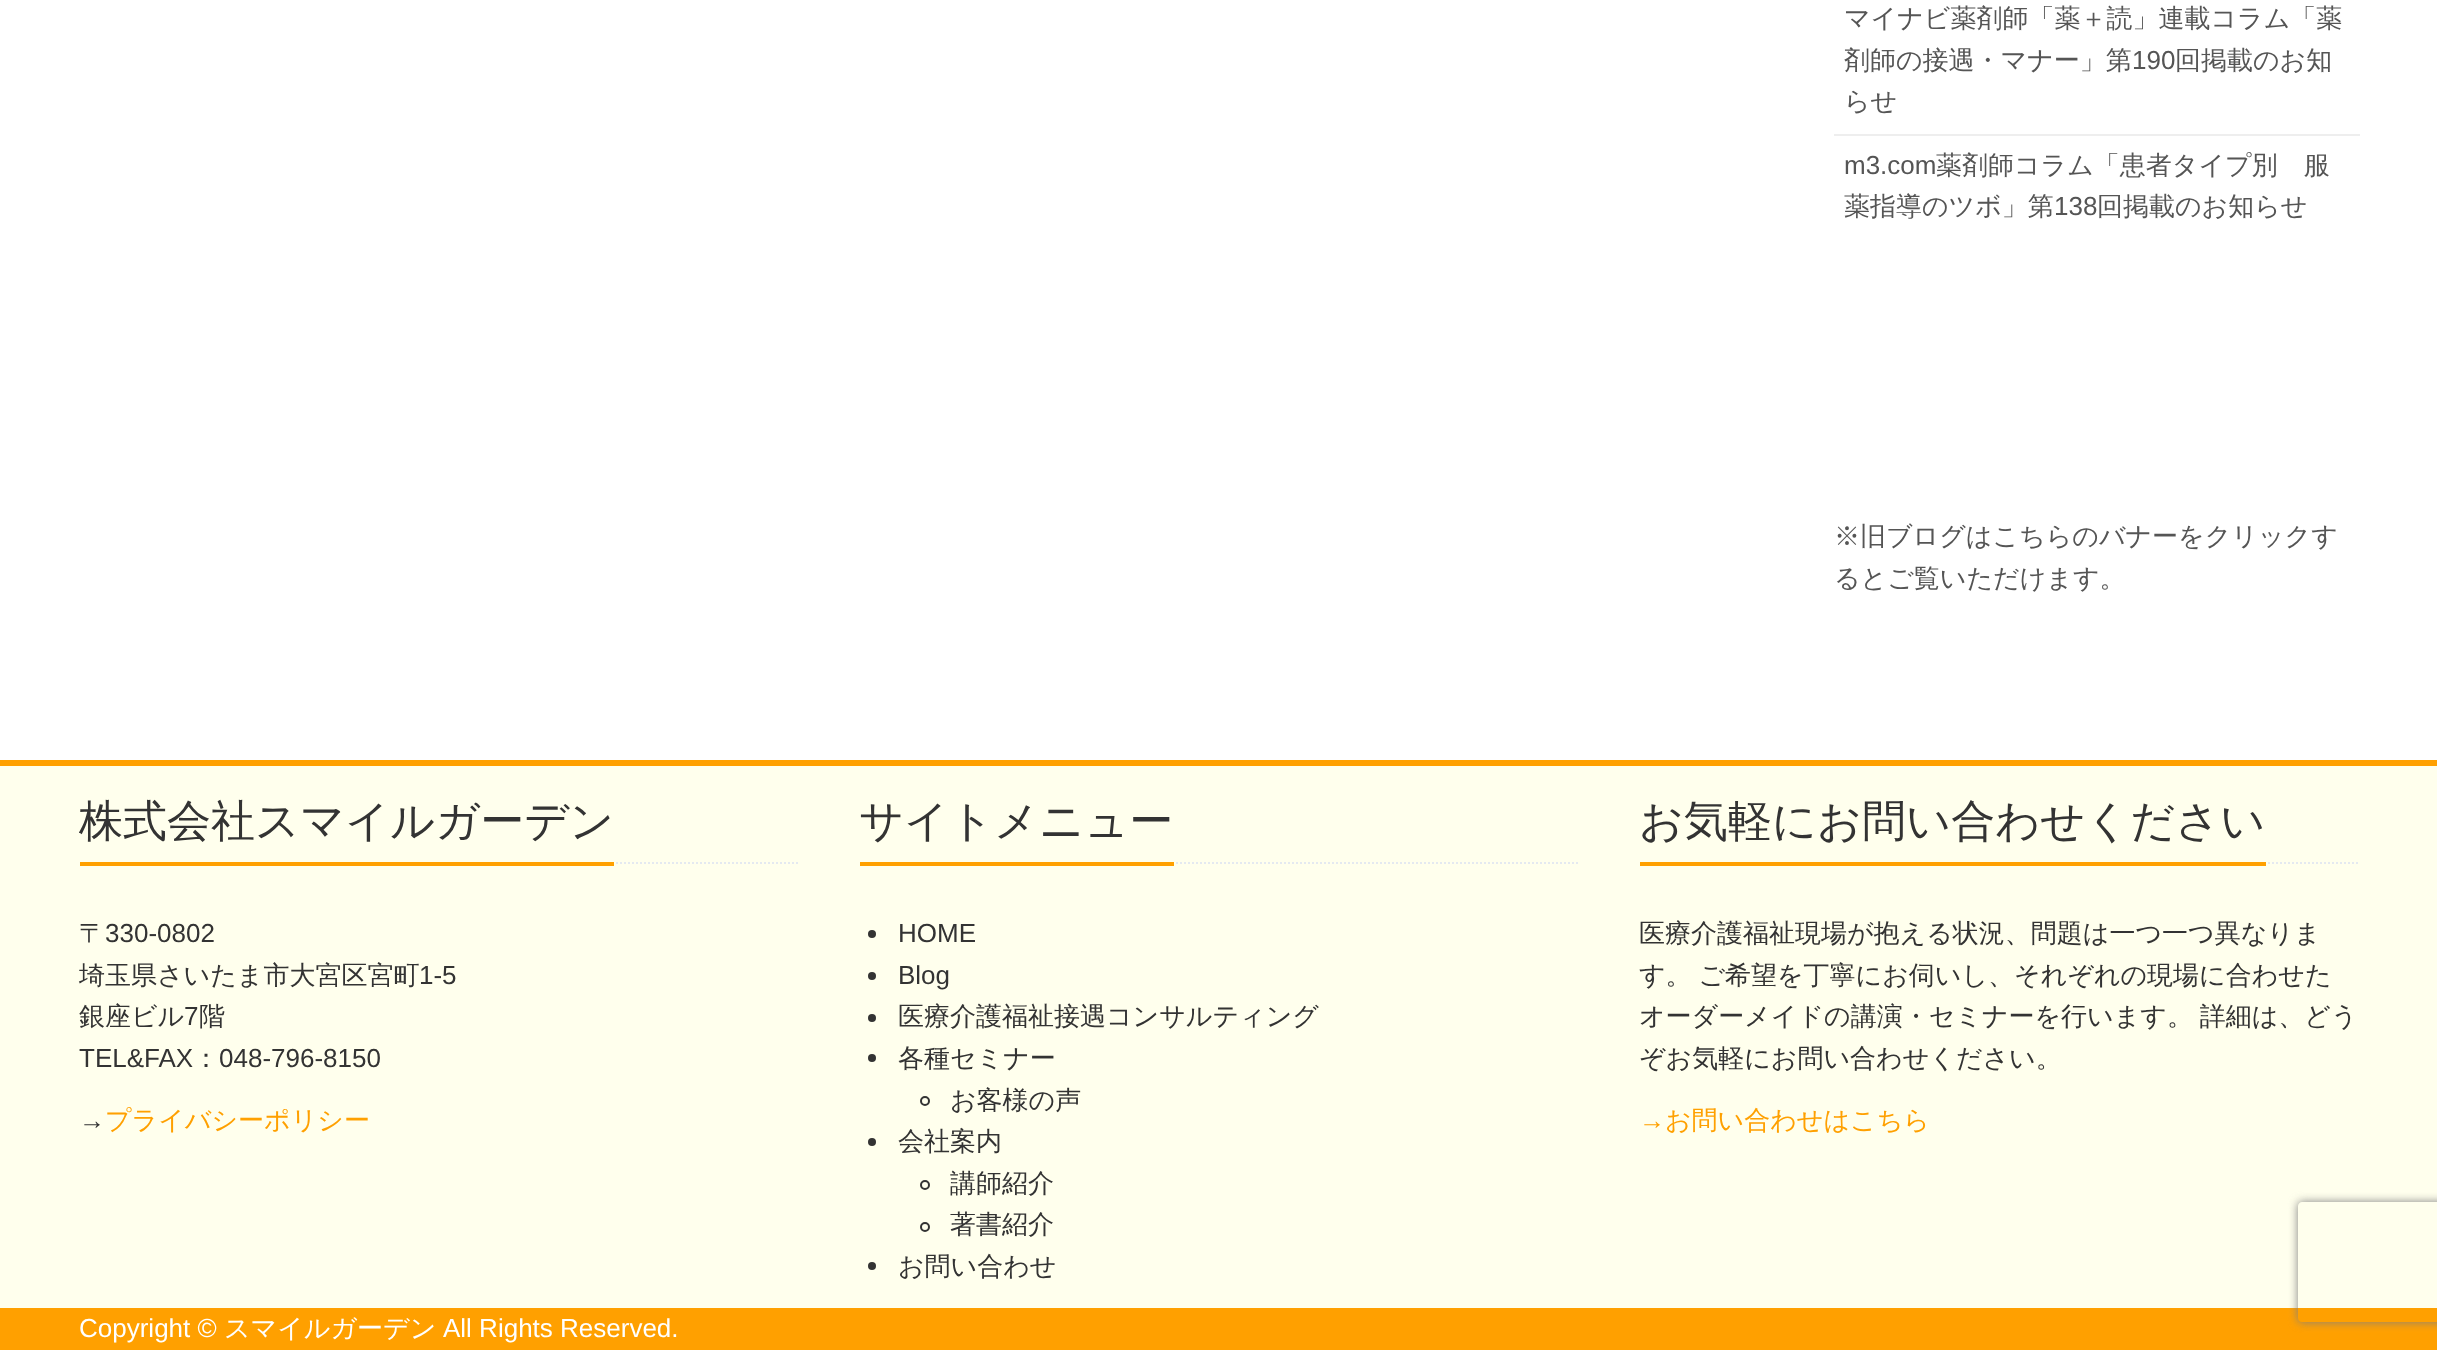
<!DOCTYPE html>
<meta charset="utf-8">
<style>body { margin: 0 } canvas { display: block }</style>
<canvas id="canvas" width="2437" height="1350"></canvas>
<script>
window.onload = function () {
	const canvas = document.getElementById("canvas");
	const ctx = canvas.getContext("2d");
	ctx.miterLimit = 4;
	ctx.fontKerning = "normal";
	function txt(s, x, y) {
		ctx.fillText(s, x, y);
	}
	function fill(x, y, w, h) {
		ctx.fillRect(x, y, w, h);
	}

	ctx.fillStyle = "#FFFFFF";
	fill(0, 0, 2437, 1350);
	ctx.fillStyle = "#EEEEEE";
	fill(1834, 134, 526, 2);
	ctx.fillStyle = "#FFA000";
	fill(0, 760, 2437, 6);
	ctx.fillStyle = "#FFFFED";
	fill(0, 766, 2437, 542);
	ctx.beginPath();
	ctx.moveTo(80, 863);
	ctx.lineTo(800, 863);
	ctx.strokeStyle = "#E4E9F0";
	ctx.lineWidth = 2;
	ctx.setLineDash([2, 2]);
	ctx.stroke();
	ctx.fillStyle = "#FFA000";
	fill(80, 862, 534, 4);
	ctx.beginPath();
	ctx.moveTo(860, 863);
	ctx.lineTo(1580, 863);
	ctx.stroke();
	fill(860, 862, 314, 4);
	ctx.fillStyle = "#333333";
	ctx.beginPath();
	ctx.arc(872, 934, 4, 0, Math.PI * 2);
	ctx.fill();
	ctx.beginPath();
	ctx.arc(872, 976, 4, 0, Math.PI * 2);
	ctx.fill();
	ctx.beginPath();
	ctx.arc(872, 1018, 4, 0, Math.PI * 2);
	ctx.fill();
	ctx.beginPath();
	ctx.arc(872, 1058, 4, 0, Math.PI * 2);
	ctx.fill();
	ctx.beginPath();
	ctx.arc(925, 1101, 4, 0, Math.PI * 2);
	ctx.strokeStyle = "#333333";
	ctx.setLineDash([]);
	ctx.stroke();
	ctx.beginPath();
	ctx.arc(872, 1142, 4, 0, Math.PI * 2);
	ctx.fill();
	ctx.beginPath();
	ctx.arc(925, 1185, 4, 0, Math.PI * 2);
	ctx.stroke();
	ctx.beginPath();
	ctx.arc(925, 1227, 4, 0, Math.PI * 2);
	ctx.stroke();
	ctx.beginPath();
	ctx.arc(872, 1266, 4, 0, Math.PI * 2);
	ctx.fill();
	ctx.beginPath();
	ctx.moveTo(1640, 863);
	ctx.lineTo(2360, 863);
	ctx.strokeStyle = "#E4E9F0";
	ctx.setLineDash([2, 2]);
	ctx.stroke();
	ctx.fillStyle = "#FFA000";
	fill(1640, 862, 626, 4);
	fill(0, 1308, 2437, 42);
	ctx.save();
	ctx.beginPath();
	ctx.moveTo(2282, 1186);
	ctx.lineTo(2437, 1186);
	ctx.lineTo(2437, 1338);
	ctx.lineTo(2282, 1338);
	ctx.closePath();
	ctx.moveTo(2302, 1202);
	ctx.lineTo(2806, 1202);
	ctx.bezierCurveTo(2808, 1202, 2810, 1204, 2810, 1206);
	ctx.lineTo(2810, 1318);
	ctx.bezierCurveTo(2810, 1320, 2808, 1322, 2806, 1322);
	ctx.lineTo(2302, 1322);
	ctx.bezierCurveTo(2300, 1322, 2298, 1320, 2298, 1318);
	ctx.lineTo(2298, 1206);
	ctx.bezierCurveTo(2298, 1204, 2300, 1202, 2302, 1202);
	ctx.closePath();
	ctx.clip("evenodd");
	ctx.fillStyle = "#808080";
	ctx.filter = "blur(5px)";
	ctx.beginPath();
	ctx.roundRect(2298, 1202, 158, 120, 4);
	ctx.fill();
	ctx.filter = "none";
	ctx.restore();
	ctx.font = "500 26px WenQuanYi Zen Hei";
	ctx.fillStyle = "#555555";
	txt("マイナビ薬剤師「薬＋読」連載コラム「薬", 1844, 27);
	txt("剤師の接遇・マナー」第", 1844, 69);
	ctx.font = "26px Liberation Sans";
	txt("190", 2132, 69);
	ctx.font = "500 26px WenQuanYi Zen Hei";
	txt("回掲載のお知", 2175, 69);
	txt("らせ", 1844, 110);
	ctx.font = "26px Liberation Sans";
	txt("m3.com", 1844, 174);
	ctx.font = "500 26px WenQuanYi Zen Hei";
	txt("薬剤師コラム「患者タイプ別　服", 1936, 174);
	txt("薬指導のツボ」第", 1844, 215);
	ctx.font = "26px Liberation Sans";
	txt("138", 2054, 215);
	ctx.font = "500 26px WenQuanYi Zen Hei";
	txt("回掲載のお知らせ", 2097, 215);
	txt("※旧ブログはこちらのバナーをクリックす", 1834, 545);
	txt("るとご覧いただけます。", 1834, 587);
	ctx.font = "500 44px WenQuanYi Zen Hei";
	ctx.fillStyle = "#333333";
	txt("株式会社スマイルガーデン", 79, 836);
	ctx.font = "500 26px WenQuanYi Zen Hei";
	txt("〒", 79, 942);
	ctx.font = "26px Liberation Sans";
	txt("330-0802", 105, 942);
	ctx.font = "500 26px WenQuanYi Zen Hei";
	txt("埼玉県さいたま市大宮区宮町", 79, 984);
	ctx.font = "26px Liberation Sans";
	txt("1-5", 419, 984);
	ctx.font = "500 26px WenQuanYi Zen Hei";
	txt("銀座ビル", 79, 1025);
	ctx.font = "26px Liberation Sans";
	txt("7", 184, 1025);
	ctx.font = "500 26px WenQuanYi Zen Hei";
	txt("階", 199, 1025);
	ctx.font = "26px Liberation Sans";
	txt("TEL&FAX", 79, 1067);
	ctx.font = "500 26px WenQuanYi Zen Hei";
	txt("：", 193, 1067);
	ctx.font = "26px Liberation Sans";
	txt("048-796-8150", 219, 1067);
	txt("→", 79, 1129);
	ctx.font = "500 26px WenQuanYi Zen Hei";
	ctx.fillStyle = "#FFA000";
	txt("プライバシーポリシー", 105, 1129);
	ctx.font = "500 44px WenQuanYi Zen Hei";
	ctx.fillStyle = "#333333";
	txt("サイトメニュー", 859, 836);
	ctx.font = "26px Liberation Sans";
	txt("HOME", 898, 942);
	txt("Blog", 898, 984);
	ctx.font = "500 26px WenQuanYi Zen Hei";
	txt("医療介護福祉接遇コンサルティング", 898, 1025);
	txt("各種セミナー", 898, 1067);
	txt("お客様の声", 950, 1109);
	txt("会社案内", 898, 1150);
	txt("講師紹介", 950, 1192);
	txt("著書紹介", 950, 1233);
	txt("お問い合わせ", 898, 1275);
	ctx.font = "500 44px WenQuanYi Zen Hei";
	txt("お気軽にお問い合わせください", 1639, 836);
	ctx.font = "500 26px WenQuanYi Zen Hei";
	txt("医療介護福祉現場が抱える状況、問題は一つ一つ異なりま", 1639, 942);
	ctx.wordSpacing = "-1px";
	txt("す。 ご希望を丁寧にお伺いし、それぞれの現場に合わせた", 1639, 984);
	txt("オーダーメイドの講演・セミナーを行います。 詳細は、どう", 1639, 1025);
	ctx.wordSpacing = "0px";
	txt("ぞお気軽にお問い合わせください。", 1639, 1067);
	ctx.font = "26px Liberation Sans";
	ctx.fillStyle = "#FFA000";
	txt("→", 1639, 1129);
	ctx.font = "500 26px WenQuanYi Zen Hei";
	txt("お問い合わせはこちら", 1665, 1129);
	ctx.font = "26px Liberation Sans";
	ctx.fillStyle = "#FFFFFF";
	txt("Copyright ©", 79, 1337);
	ctx.font = "500 26px WenQuanYi Zen Hei";
	txt("スマイルガーデン", 224, 1337);
	ctx.font = "26px Liberation Sans";
	txt("All Rights Reserved.", 443, 1337);
};
</script>
